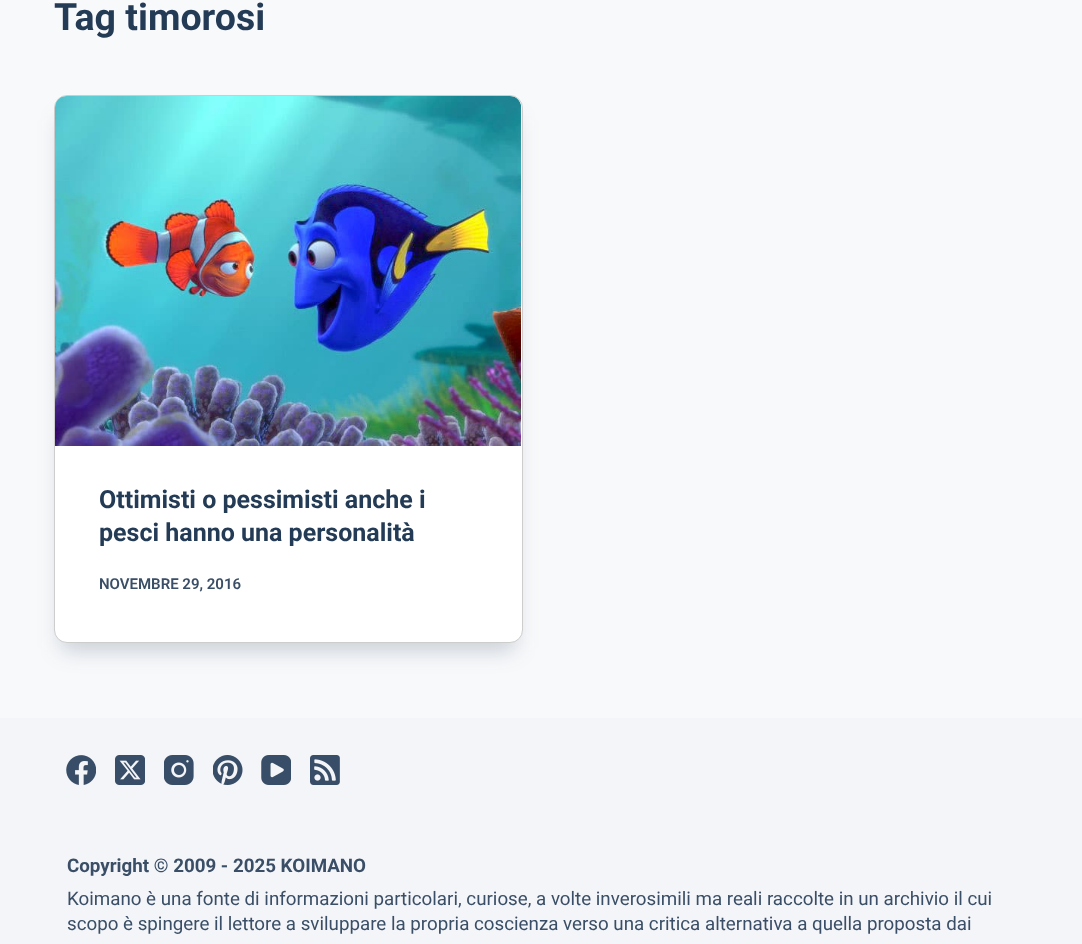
<!DOCTYPE html>
<meta charset="utf-8">
<style>body { margin: 0 } canvas { display: block }</style>
<canvas id="canvas" width="1082" height="944"></canvas>
<img id="img1" src="img_01.png" hidden>
<img id="img2" src="img_02.png" hidden>
<img id="img3" src="img_03.png" hidden>
<img id="img4" src="img_04.png" hidden>
<img id="img5" src="img_05.png" hidden>
<img id="img6" src="img_06.png" hidden>
<img id="img7" src="img_07.png" hidden>
<script>
window.onload = function () {
	const canvas = document.getElementById("canvas");
	const ctx = canvas.getContext("2d");
	ctx.miterLimit = 4;
	ctx.fontKerning = "normal";
	function txt(s, x, y) {
		ctx.fillText(s, x, y);
	}
	function fill(x, y, w, h) {
		ctx.fillRect(x, y, w, h);
	}
	function img(id, x, y, w, h) {
		ctx.drawImage(document.getElementById(id), x, y, w, h);
	}

	ctx.fillStyle = "#F8F9FB";
	fill(0, 0, 1082, 944);
	ctx.fillStyle = "rgba(36, 60, 86, 0.23)";
	ctx.filter = "blur(11px)";
	ctx.beginPath();
	ctx.roundRect(61, 118, 454, 532, 5);
	ctx.fill();
	ctx.filter = "none";
	ctx.fillStyle = "#FFFFFF";
	ctx.beginPath();
	ctx.roundRect(54.5, 95.5, 468, 547, 12.5);
	ctx.fill();
	ctx.strokeStyle = "#CDCDCD";
	ctx.stroke();
	img("img1", 55, 96, 466, 350);
	ctx.fillStyle = "#F4F5F8";
	fill(0, 718, 1082, 226);
	img("img2", 66, 755, 30, 30);
	img("img3", 115, 755, 30, 30);
	img("img4", 164, 755, 30, 30);
	img("img5", 213, 755, 30, 30);
	img("img6", 261, 755, 30, 30);
	img("img7", 310, 755, 30, 30);
	ctx.font = "bold 37.5px Roboto";
	ctx.fillStyle = "#243B56";
	txt("Tag timorosi", 54, 30);
	ctx.font = "bold 25px Roboto";
	txt("Ottimisti o pessimisti anche i", 99, 508);
	txt("pesci hanno una personalità", 99, 541);
	ctx.font = "600 15px Roboto";
	ctx.fillStyle = "#3A4F67";
	txt("NOVEMBRE 29, 2016", 99, 589);
	ctx.font = "bold 18.75px Roboto";
	txt("Copyright © 2009 - 2025 KOIMANO", 67, 872);
	ctx.font = "18.75px Roboto";
	txt("Koimano è una fonte di informazioni particolari, curiose, a volte inverosimili ma reali raccolte in un archivio il cui", 67, 905);
	txt("scopo è spingere il lettore a sviluppare la propria coscienza verso una critica alternativa a quella proposta dai", 67, 930);
};
</script>
